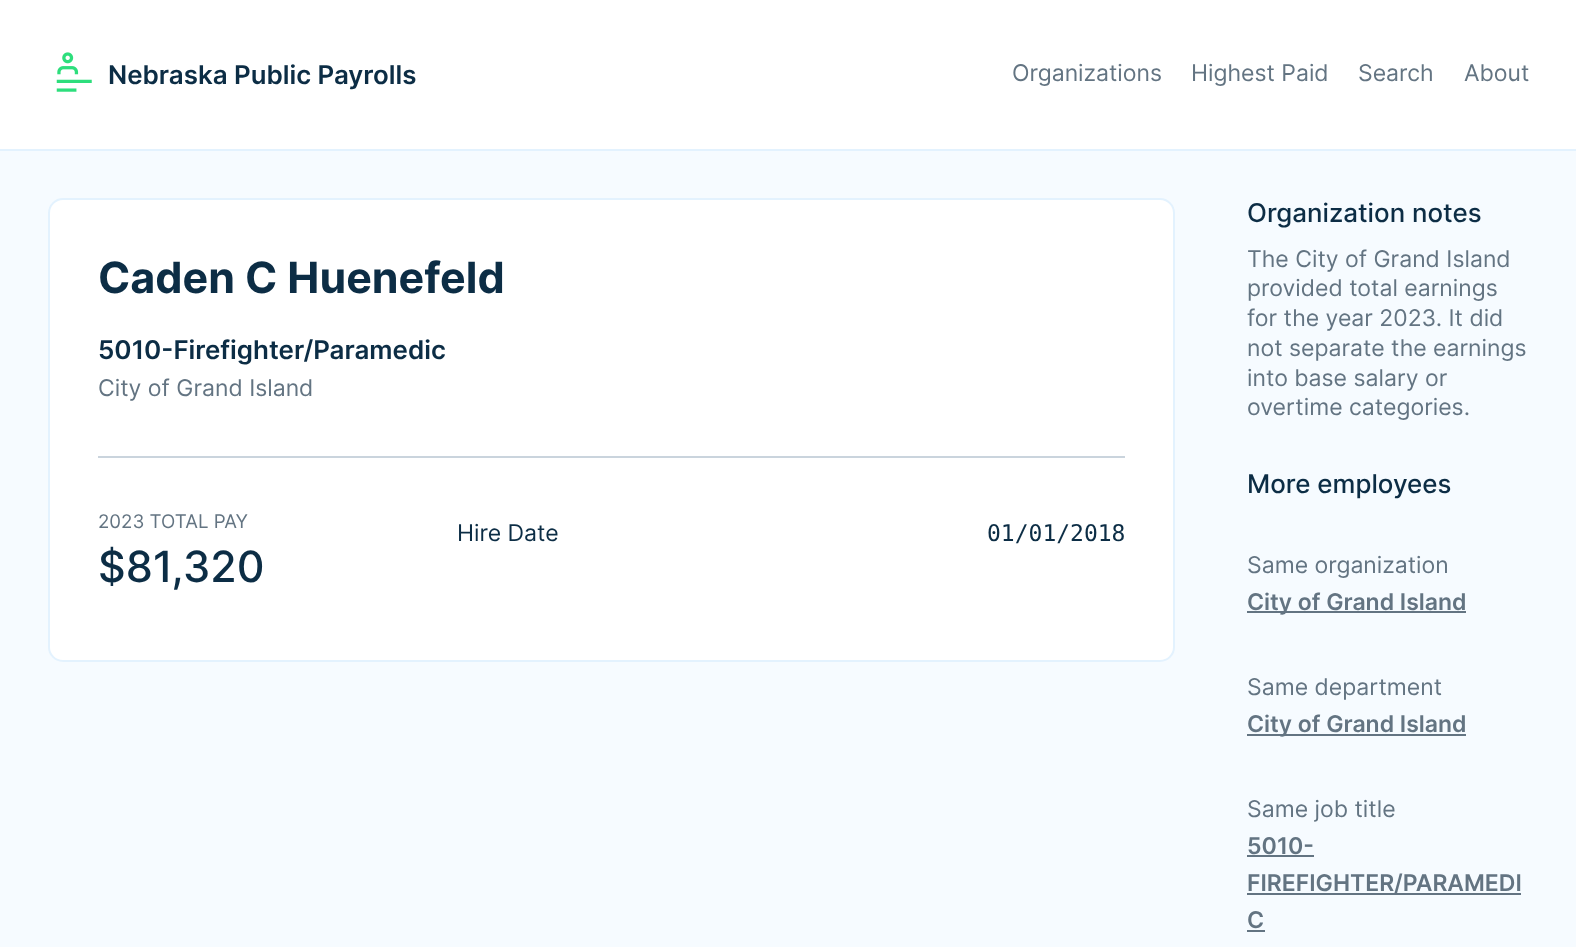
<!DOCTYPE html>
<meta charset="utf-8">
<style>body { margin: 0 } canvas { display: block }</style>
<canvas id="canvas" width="1576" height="947"></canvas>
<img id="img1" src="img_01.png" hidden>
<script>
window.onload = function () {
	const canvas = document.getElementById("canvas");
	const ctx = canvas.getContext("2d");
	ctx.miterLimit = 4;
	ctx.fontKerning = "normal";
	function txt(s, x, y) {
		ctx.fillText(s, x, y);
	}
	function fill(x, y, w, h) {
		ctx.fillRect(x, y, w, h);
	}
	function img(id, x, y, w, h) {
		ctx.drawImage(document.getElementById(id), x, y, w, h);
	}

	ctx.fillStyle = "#FFFFFF";
	fill(0, 0, 1576, 947);
	ctx.fillStyle = "#E3F2FE";
	fill(0, 149, 1576, 2);
	img("img1", 56, 52, 36, 40);
	ctx.fillStyle = "#F6FBFF";
	fill(0, 151, 1576, 796);
	ctx.fillStyle = "#FFFFFF";
	ctx.beginPath();
	ctx.roundRect(49, 199, 1125, 462, 14);
	ctx.fill();
	ctx.strokeStyle = "#E3F2FE";
	ctx.lineWidth = 2;
	ctx.stroke();
	ctx.fillStyle = "#CAD4DD";
	fill(98, 456, 1027, 2);
	ctx.fillStyle = "#637482";
	fill(1247, 611, 219, 2);
	fill(1247, 734, 219, 2);
	fill(1247, 855, 67, 2);
	fill(1247, 893, 274, 2);
	fill(1247, 930, 18, 2);
	ctx.font = "600 25.9px Inter";
	ctx.fillStyle = "#0C2D45";
	txt("Nebraska Public Payrolls", 108, 84);
	ctx.font = "23px Inter";
	ctx.fillStyle = "#637482";
	txt("Organizations", 1012, 81);
	txt("Highest Paid", 1191, 81);
	txt("Search", 1358, 81);
	txt("About", 1464, 81);
	ctx.font = "bold 43px Inter";
	ctx.fillStyle = "#0C2D45";
	txt("Caden C Huenefeld", 98, 293);
	ctx.font = "600 25.9px Inter";
	txt("5010-Firefighter/Paramedic", 98, 359);
	ctx.font = "23px Inter";
	ctx.fillStyle = "#637482";
	txt("City of Grand Island", 98, 396);
	ctx.font = "18.75px Inter";
	txt("2023 TOTAL PAY", 98, 528);
	ctx.font = "500 43px Inter";
	ctx.fillStyle = "#0C2D45";
	txt("$81,320", 98, 582);
	ctx.font = "23px Inter";
	txt("Hire Date", 457, 541);
	ctx.font = "23px DejaVu Sans Mono";
	txt("01/01/2018", 987, 541);
	ctx.font = "500 25.9px Inter";
	txt("Organization notes", 1247, 222);
	ctx.font = "23px Inter";
	ctx.fillStyle = "#637482";
	txt("The City of Grand Island", 1247, 267);
	txt("provided total earnings", 1247, 296);
	txt("for the year 2023. It did", 1247, 326);
	txt("not separate the earnings", 1247, 356);
	txt("into base salary or", 1247, 386);
	txt("overtime categories.", 1247, 415);
	ctx.font = "500 25.9px Inter";
	ctx.fillStyle = "#0C2D45";
	txt("More employees", 1247, 493);
	ctx.font = "23px Inter";
	ctx.fillStyle = "#637482";
	txt("Same organization", 1247, 573);
	ctx.font = "600 23px Inter";
	txt("City of Grand Island", 1247, 610);
	ctx.font = "23px Inter";
	txt("Same department", 1247, 695);
	ctx.font = "600 23px Inter";
	txt("City of Grand Island", 1247, 732);
	ctx.font = "23px Inter";
	txt("Same job title", 1247, 817);
	ctx.font = "600 23px Inter";
	txt("5010-", 1247, 854);
	txt("FIREFIGHTER/PARAMEDI", 1247, 891);
	txt("C", 1247, 928);
};
</script>
